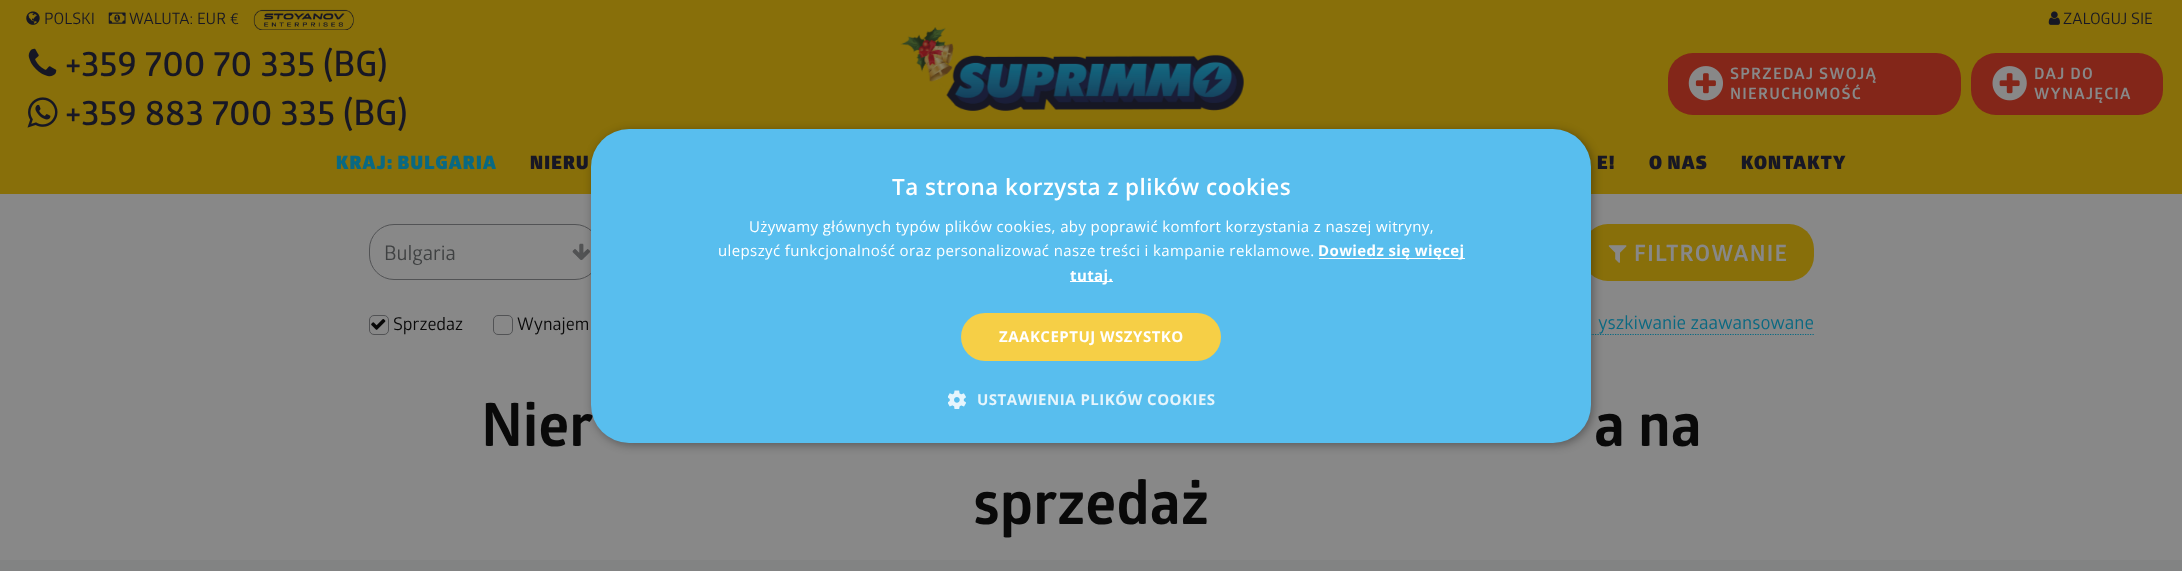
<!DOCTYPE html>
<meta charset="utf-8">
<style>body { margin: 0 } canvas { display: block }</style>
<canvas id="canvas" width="2182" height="571"></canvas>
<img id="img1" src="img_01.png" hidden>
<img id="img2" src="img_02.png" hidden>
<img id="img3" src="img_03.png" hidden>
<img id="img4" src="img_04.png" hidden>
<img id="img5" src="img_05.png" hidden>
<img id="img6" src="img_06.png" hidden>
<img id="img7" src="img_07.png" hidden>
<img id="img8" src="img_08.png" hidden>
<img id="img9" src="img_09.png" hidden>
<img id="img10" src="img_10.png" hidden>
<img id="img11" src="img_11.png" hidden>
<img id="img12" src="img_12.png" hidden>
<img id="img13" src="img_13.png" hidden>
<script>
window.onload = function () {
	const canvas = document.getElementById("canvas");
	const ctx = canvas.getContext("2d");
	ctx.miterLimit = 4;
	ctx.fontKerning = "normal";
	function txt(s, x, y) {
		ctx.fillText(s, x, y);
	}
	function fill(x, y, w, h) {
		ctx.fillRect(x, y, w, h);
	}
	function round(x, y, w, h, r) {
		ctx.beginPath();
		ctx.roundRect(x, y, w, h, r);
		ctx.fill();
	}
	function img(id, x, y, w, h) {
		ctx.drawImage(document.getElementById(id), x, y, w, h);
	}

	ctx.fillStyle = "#888888";
	fill(0, 0, 2182, 571);
	ctx.fillStyle = "#886F0A";
	fill(0, 0, 2182, 194);
	img("img1", 26, 11, 14, 14);
	img("img2", 108, 12, 18, 12);
	img("img3", 253, 9, 101, 21);
	img("img4", 28, 48, 29, 29);
	img("img5", 27, 97, 31, 31);
	img("img6", 900, 27, 344, 84);
	ctx.fillStyle = "#832619";
	round(1668, 53, 293, 62, 25);
	img("img7", 1688, 66, 35, 35);
	round(1971, 53, 192, 62, 25);
	img("img8", 1992, 66, 35, 35);
	img("img9", 2048, 11, 12, 14);
	img("img10", 572, 243, 18, 17);
	ctx.beginPath();
	ctx.roundRect(369.5, 224.5, 230, 55, 24.5);
	ctx.strokeStyle = "#525355";
	ctx.stroke();
	ctx.fillStyle = "#886F0A";
	round(1583, 224, 231, 57, 25);
	img("img11", 1608, 245, 19, 18);
	ctx.beginPath();
	ctx.roundRect(369.5, 315.5, 19, 19, 4.5);
	ctx.stroke();
	img("img12", 371, 319, 15, 11);
	ctx.beginPath();
	ctx.roundRect(493.5, 315.5, 19, 19, 4.5);
	ctx.stroke();
	ctx.beginPath();
	ctx.moveTo(1580, 334.5);
	ctx.lineTo(1814, 334.5);
	ctx.strokeStyle = "#096982";
	ctx.lineWidth = 1.2;
	ctx.setLineDash([1.25, 1.25]);
	ctx.stroke();
	ctx.fillStyle = "#828383";
	fill(0, 560, 2182, 11);
	ctx.fillStyle = "rgba(0, 0, 0, 0.35)";
	ctx.filter = "blur(5px)";
	ctx.beginPath();
	ctx.roundRect(593, 131, 1000, 314, 38);
	ctx.fill();
	ctx.filter = "none";
	ctx.font = "15.75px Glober";
	ctx.fillStyle = "#171725";
	txt("POLSKI", 44, 24);
	txt("WALUTA: EUR €", 129, 24);
	ctx.font = "600 35px Glober";
	txt("+359 700 70 335 (BG)", 65, 76);
	txt("+359 883 700 335 (BG)", 65, 125);
	ctx.letterSpacing = "1.25px";
	ctx.font = "bold 15.75px Glober";
	ctx.fillStyle = "#888888";
	txt("SPRZEDAJ SWOJĄ", 1730, 79);
	txt("NIERUCHOMOŚĆ", 1730, 99);
	txt("DAJ DO", 2034, 79);
	txt("WYNAJĘCIA", 2034, 99);
	ctx.letterSpacing = "0px";
	ctx.font = "15.75px Glober";
	ctx.fillStyle = "#171725";
	txt("ZALOGUJ SIE", 2063, 24);
	ctx.letterSpacing = "1.25px";
	ctx.font = "900 18.5px Glober";
	ctx.fillStyle = "#096982";
	txt("KRAJ: BULGARIA", 336, 169);
	ctx.fillStyle = "#171725";
	txt("NIERU", 530, 169);
	txt("E!", 1597, 169);
	txt("O NAS", 1649, 169);
	txt("KONTAKTY", 1741, 169);
	ctx.letterSpacing = "0px";
	ctx.font = "20px Glober";
	ctx.fillStyle = "#3F4142";
	txt("Bulgaria", 384, 260);
	ctx.letterSpacing = "1.25px";
	ctx.font = "bold 22.5px Glober";
	ctx.fillStyle = "#888888";
	txt("FILTROWANIE", 1634, 261);
	ctx.letterSpacing = "0px";
	ctx.font = "17.5px Glober";
	ctx.fillStyle = "#090909";
	txt("Sprzedaz", 393, 330);
	txt("Wynajem", 517, 330);
	ctx.font = "18.5px Glober";
	ctx.fillStyle = "#096982";
	txt("yszkiwanie zaawansowane", 1598, 329);
	ctx.font = "bold 60px Glober";
	ctx.fillStyle = "#090909";
	txt("Nier", 481, 446);
	txt("a na", 1594, 446);
	txt("sprzedaż", 973, 524);
	ctx.fillStyle = "#58BEEE";
	round(591, 129, 1000, 314, 38);
	ctx.letterSpacing = "0.5px";
	ctx.font = "600 22.5px Open Sans";
	ctx.fillStyle = "#FFFFFF";
	txt("Ta strona korzysta z plików cookies", 892, 195);
	ctx.letterSpacing = "0.38px";
	ctx.font = "15px Open Sans";
	txt("Używamy głównych typów plików cookies, aby poprawić komfort korzystania z naszej witryny,", 749, 232);
	txt("ulepszyć funkcjonalność oraz personalizować nasze treści i kampanie reklamowe.", 718, 256);
	fill(1319, 258, 146, 1);
	ctx.font = "bold 15px Open Sans";
	txt("Dowiedz się więcej", 1318, 256);
	fill(1070, 281, 43, 1);
	txt("tutaj.", 1070, 281);
	ctx.fillStyle = "#F6CF46";
	round(961, 313, 260, 48, 24);
	ctx.letterSpacing = "0.5px";
	ctx.fillStyle = "#FFFFFF";
	txt("ZAAKCEPTUJ WSZYSTKO", 999, 342);
	img("img13", 948, 390, 18, 19);
	ctx.fillStyle = "#E6F5FC";
	txt("USTAWIENIA PLIKÓW COOKIES", 977, 405);
};
</script>
